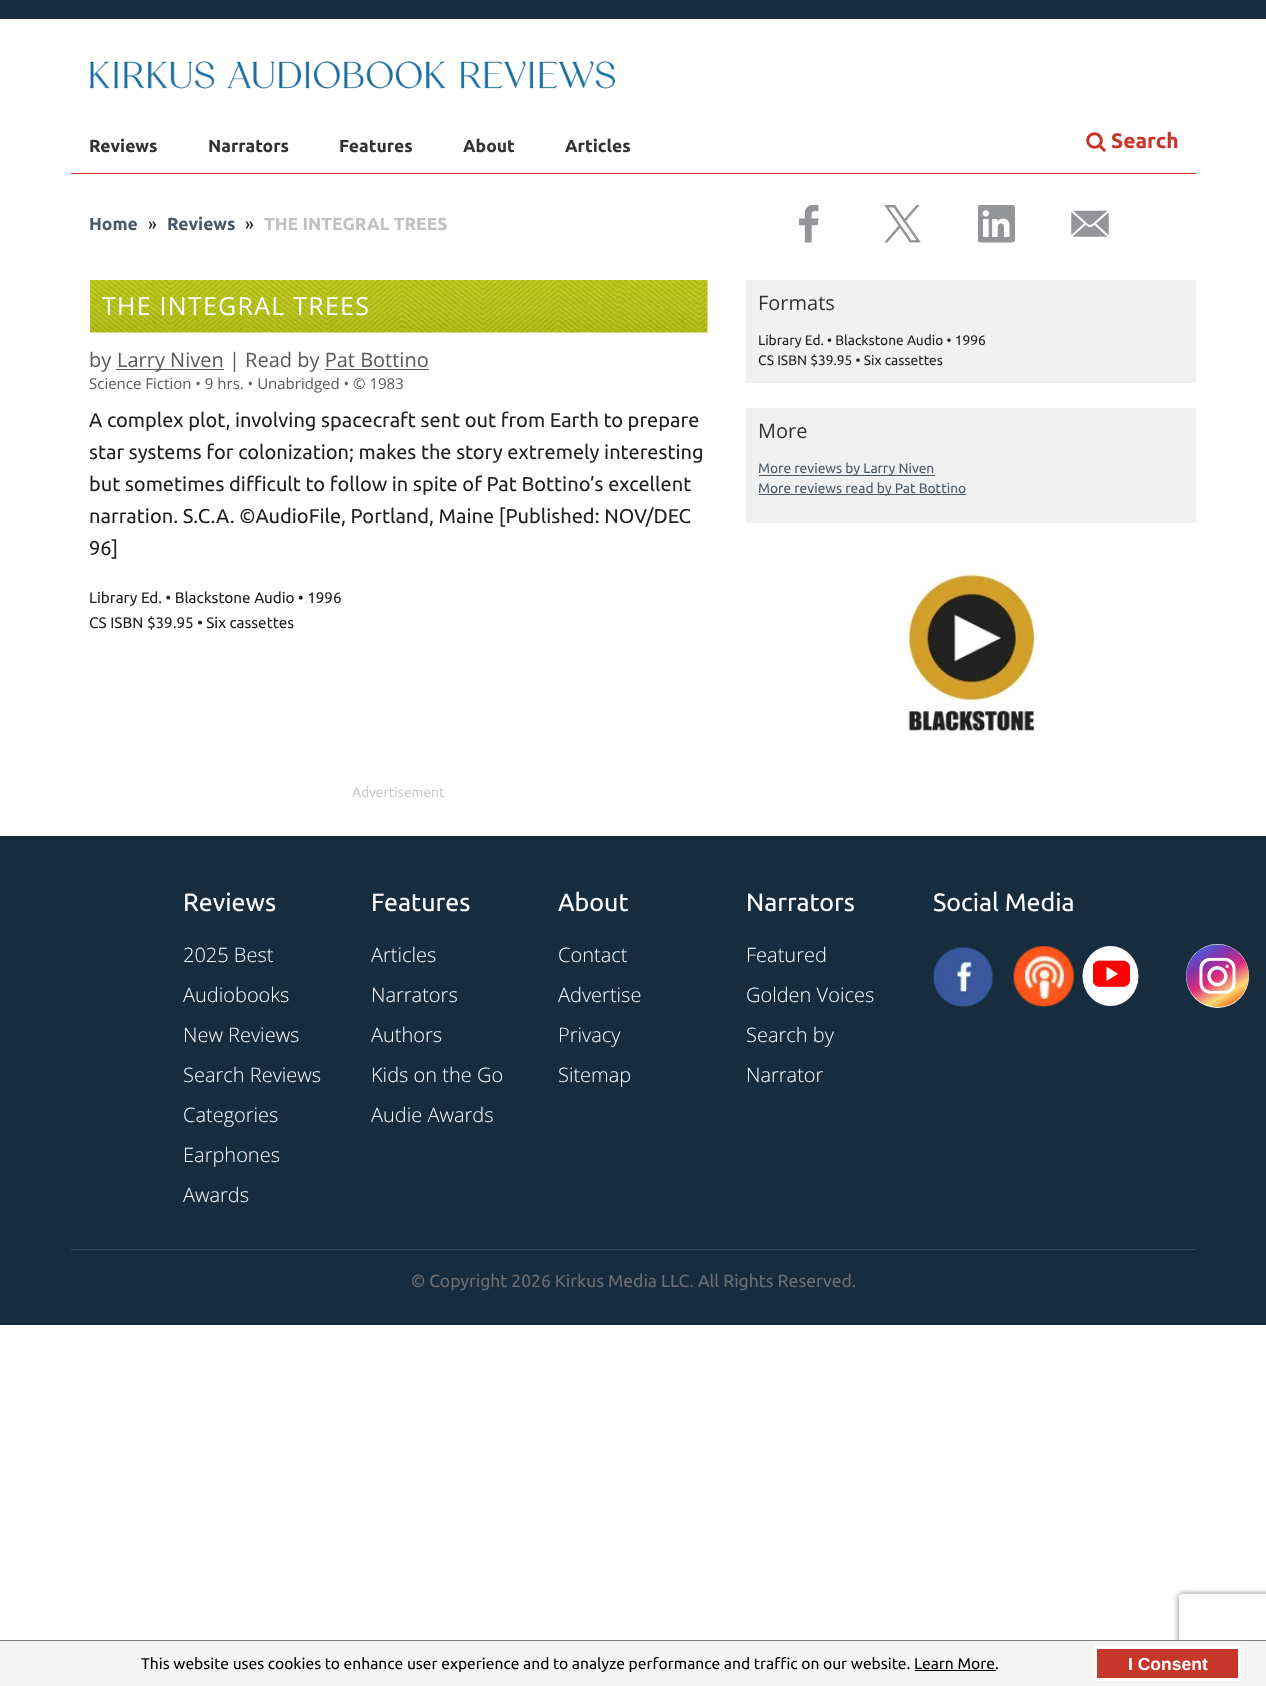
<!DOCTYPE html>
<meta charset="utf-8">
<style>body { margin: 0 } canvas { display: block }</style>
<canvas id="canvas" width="1266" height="1686"></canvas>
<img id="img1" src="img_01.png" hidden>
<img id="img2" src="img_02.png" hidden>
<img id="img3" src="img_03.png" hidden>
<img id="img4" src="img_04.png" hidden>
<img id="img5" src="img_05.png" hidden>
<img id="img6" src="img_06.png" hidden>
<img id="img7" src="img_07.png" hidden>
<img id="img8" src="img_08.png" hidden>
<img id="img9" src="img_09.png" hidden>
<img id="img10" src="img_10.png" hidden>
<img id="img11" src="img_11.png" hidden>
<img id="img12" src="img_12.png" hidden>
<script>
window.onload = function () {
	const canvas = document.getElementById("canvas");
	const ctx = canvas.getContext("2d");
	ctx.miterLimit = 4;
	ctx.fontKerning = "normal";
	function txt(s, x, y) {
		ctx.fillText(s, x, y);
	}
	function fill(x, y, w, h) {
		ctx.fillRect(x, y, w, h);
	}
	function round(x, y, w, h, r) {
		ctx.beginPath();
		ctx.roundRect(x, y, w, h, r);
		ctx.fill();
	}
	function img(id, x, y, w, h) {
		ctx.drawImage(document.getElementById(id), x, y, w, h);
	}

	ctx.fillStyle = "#FFFFFF";
	fill(0, 0, 1266, 1686);
	ctx.fillStyle = "#172D3E";
	fill(0, 0, 1266, 19);
	img("img1", 90, 61, 525, 28);
	ctx.fillStyle = "#C7362A";
	fill(71, 173, 1125, 1);
	img("img2", 1086, 132, 20, 20);
	img("img3", 799, 205, 20, 38);
	img("img4", 884, 205, 37, 38);
	img("img5", 978, 205, 37, 38);
	img("img6", 1071, 210, 38, 27);
	img("img7", 90, 280, 618, 53);
	ctx.fillStyle = "#595959";
	fill(116, 369, 108, 1);
	fill(325, 369, 104, 1);
	ctx.fillStyle = "#F1F1F1";
	fill(746, 280, 450, 103);
	fill(746, 408, 450, 115);
	ctx.fillStyle = "#4B5966";
	fill(759, 475, 176, 1);
	fill(759, 494, 207, 1);
	img("img8", 907, 573, 129, 161);
	ctx.fillStyle = "#172D3E";
	fill(0, 836, 1266, 489);
	img("img9", 933, 947, 60, 60);
	img("img10", 1013, 946, 61, 61);
	ctx.fillStyle = "#FFFFFF";
	ctx.beginPath();
	ctx.ellipse(1110.5, 976, 28, 30, 0, 0, Math.PI * 2);
	ctx.fill();
	img("img11", 1093, 960, 37, 27);
	round(1186, 944, 63, 64, 31.5);
	img("img12", 1186, 944, 63, 63);
	ctx.save();
	ctx.beginPath();
	ctx.moveTo(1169, 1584);
	ctx.lineTo(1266, 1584);
	ctx.lineTo(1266, 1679);
	ctx.lineTo(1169, 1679);
	ctx.closePath();
	ctx.moveTo(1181.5, 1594);
	ctx.lineTo(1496.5, 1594);
	ctx.bezierCurveTo(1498, 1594, 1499, 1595, 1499, 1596.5);
	ctx.lineTo(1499, 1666.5);
	ctx.bezierCurveTo(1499, 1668, 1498, 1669, 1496.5, 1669);
	ctx.lineTo(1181.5, 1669);
	ctx.bezierCurveTo(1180, 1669, 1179, 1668, 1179, 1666.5);
	ctx.lineTo(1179, 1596.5);
	ctx.bezierCurveTo(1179, 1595, 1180, 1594, 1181.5, 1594);
	ctx.closePath();
	ctx.clip("evenodd");
	ctx.fillStyle = "#808080";
	ctx.filter = "blur(3px)";
	ctx.beginPath();
	ctx.roundRect(1179, 1594, 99, 75, 2.5);
	ctx.fill();
	ctx.filter = "none";
	ctx.restore();
	ctx.fillStyle = "#F4F4F4";
	fill(0, 1641, 1266, 45);
	ctx.fillStyle = "#808080";
	fill(0, 1640, 1266, 1);
	ctx.fillStyle = "#000000";
	fill(915, 1670, 81, 1);
	ctx.fillStyle = "#C7362A";
	ctx.beginPath();
	ctx.rect(1095.5, 1647.5, 144, 32);
	ctx.fill();
	ctx.strokeStyle = "#FFFFFF";
	ctx.lineWidth = 3;
	ctx.stroke();
	ctx.fillStyle = "#374A59";
	fill(71, 1249, 1125, 1);
	ctx.font = "bold 17.5px Ubuntu";
	ctx.fillStyle = "#333333";
	txt("Reviews", 89, 152);
	txt("Narrators", 208, 152);
	txt("Features", 339, 152);
	txt("About", 463, 152);
	txt("Articles", 565, 152);
	ctx.font = "bold 21px Ubuntu";
	ctx.fillStyle = "#C7362A";
	txt("Search", 1111, 148);
	ctx.font = "bold 17.5px Ubuntu";
	ctx.fillStyle = "#4B5966";
	txt("Home", 89, 230);
	ctx.font = "17.5px Ubuntu";
	ctx.fillStyle = "#222222";
	txt("»", 148, 230);
	ctx.font = "bold 17.5px Ubuntu";
	ctx.fillStyle = "#4B5966";
	txt("Reviews", 167, 230);
	ctx.font = "17.5px Ubuntu";
	ctx.fillStyle = "#222222";
	txt("»", 245, 230);
	ctx.font = "bold 17.5px Ubuntu";
	ctx.fillStyle = "#C1C1C1";
	txt("THE INTEGRAL TREES", 264, 230);
	ctx.letterSpacing = "1.25px";
	ctx.font = "25px Open Sans";
	ctx.fillStyle = "#FFFFFF";
	txt("THE INTEGRAL TREES", 102, 315);
	ctx.letterSpacing = "0px";
	ctx.font = "20px Open Sans";
	ctx.fillStyle = "#595959";
	txt("by", 89, 367);
	txt("Larry Niven | Read by Pat Bottino", 117, 367);
	ctx.font = "15px Open Sans";
	txt("Science Fiction • 9 hrs. • Unabridged • © 1983", 89, 389);
	ctx.font = "20px Ubuntu";
	ctx.fillStyle = "#222222";
	txt("A complex plot, involving spacecraft sent out from Earth to prepare", 89, 427);
	txt("star systems for colonization; makes the story extremely interesting", 89, 459);
	txt("but sometimes difficult to follow in spite of Pat Bottino’s excellent", 89, 491);
	txt("narration. S.C.A. ©AudioFile, Portland, Maine [Published: NOV/DEC", 89, 523);
	txt("96]", 89, 555);
	ctx.font = "15.25px Ubuntu";
	txt("Library Ed. • Blackstone Audio • 1996", 89, 603);
	txt("CS ISBN $39.95 • Six cassettes", 89, 628);
	ctx.font = "13.75px Ubuntu";
	ctx.fillStyle = "#CCCCCC";
	txt("Advertisement", 352, 797);
	ctx.font = "20px Open Sans";
	ctx.fillStyle = "#333333";
	txt("Formats", 758, 310);
	ctx.font = "13.75px Ubuntu";
	ctx.fillStyle = "#222222";
	txt("Library Ed. • Blackstone Audio • 1996", 758, 345);
	txt("CS ISBN $39.95 • Six cassettes", 758, 365);
	ctx.font = "20px Open Sans";
	ctx.fillStyle = "#333333";
	txt("More", 758, 438);
	ctx.font = "13.75px Ubuntu";
	ctx.fillStyle = "#4B5966";
	txt("More reviews by Larry Niven", 758, 473);
	txt("More reviews read by Pat Bottino", 758, 493);
	ctx.font = "25px Ubuntu";
	ctx.fillStyle = "#FFFFFF";
	txt("Reviews", 183, 911);
	ctx.font = "300 20px Open Sans";
	txt("2025 Best", 183, 962);
	txt("Audiobooks", 183, 1002);
	txt("New Reviews", 183, 1042);
	txt("Search Reviews", 183, 1082);
	txt("Categories", 183, 1122);
	txt("Earphones", 183, 1162);
	txt("Awards", 183, 1202);
	ctx.font = "25px Ubuntu";
	txt("Features", 371, 911);
	ctx.font = "300 20px Open Sans";
	txt("Articles", 371, 962);
	txt("Narrators", 371, 1002);
	txt("Authors", 371, 1042);
	txt("Kids on the Go", 371, 1082);
	txt("Audie Awards", 371, 1122);
	ctx.font = "25px Ubuntu";
	txt("About", 558, 911);
	ctx.font = "300 20px Open Sans";
	txt("Contact", 558, 962);
	txt("Advertise", 558, 1002);
	txt("Privacy", 558, 1042);
	txt("Sitemap", 558, 1082);
	ctx.font = "25px Ubuntu";
	txt("Narrators", 746, 911);
	ctx.font = "300 20px Open Sans";
	txt("Featured", 746, 962);
	txt("Golden Voices", 746, 1002);
	txt("Search by", 746, 1042);
	txt("Narrator", 746, 1082);
	ctx.font = "25px Ubuntu";
	txt("Social Media", 933, 911);
	ctx.font = "15.62px Ubuntu";
	ctx.fillStyle = "#000000";
	txt("This website uses cookies to enhance user experience and to analyze performance and traffic on our website. Learn More.", 141, 1669);
	ctx.font = "bold 17.5px Liberation Sans";
	ctx.fillStyle = "#FFFFFF";
	txt("I Consent", 1128, 1670);
	ctx.font = "17.5px Ubuntu";
	ctx.fillStyle = "#6D6E71";
	txt("© Copyright 2026 Kirkus Media LLC. All Rights Reserved.", 411, 1287);
};
</script>
